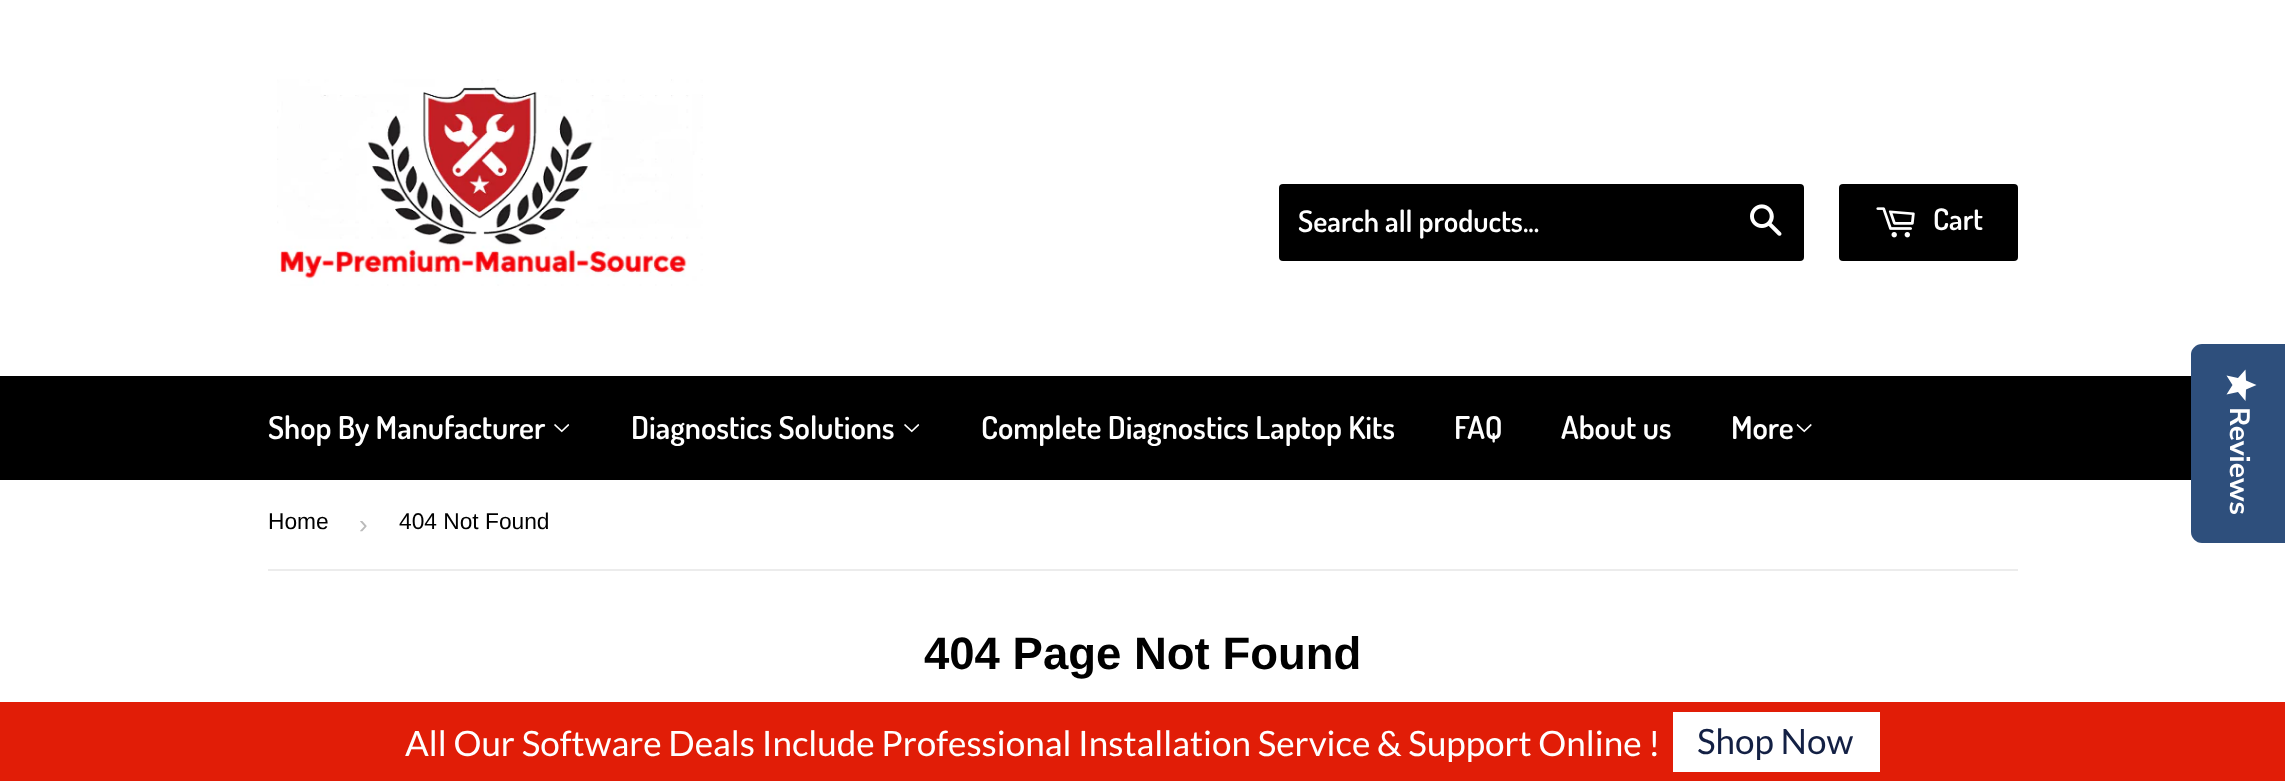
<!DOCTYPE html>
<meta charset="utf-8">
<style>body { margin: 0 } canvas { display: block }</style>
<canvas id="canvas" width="2285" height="781"></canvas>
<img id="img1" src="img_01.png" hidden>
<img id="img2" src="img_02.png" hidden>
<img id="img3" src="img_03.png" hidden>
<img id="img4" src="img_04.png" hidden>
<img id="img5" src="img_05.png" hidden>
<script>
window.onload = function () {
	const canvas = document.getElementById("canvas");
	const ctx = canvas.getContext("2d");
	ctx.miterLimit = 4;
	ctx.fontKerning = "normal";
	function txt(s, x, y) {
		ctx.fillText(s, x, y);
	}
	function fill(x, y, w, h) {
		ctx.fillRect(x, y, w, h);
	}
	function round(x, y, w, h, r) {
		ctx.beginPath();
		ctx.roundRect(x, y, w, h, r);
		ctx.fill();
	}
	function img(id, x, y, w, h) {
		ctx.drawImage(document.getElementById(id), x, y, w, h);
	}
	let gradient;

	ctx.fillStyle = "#FFFFFF";
	fill(0, 0, 2285, 781);
	img("img1", 277, 79, 426, 207);
	ctx.fillStyle = "#000000";
	round(1279, 184, 525, 77, 4);
	img("img2", 1750, 204, 32, 32);
	round(1839, 184, 179, 77, 4);
	img("img3", 1876, 207, 39, 31);
	fill(0, 376, 2191, 104);
	img("img4", 554, 424, 16, 9);
	img("img4", 904, 424, 16, 9);
	img("img5", 1796, 424, 16, 9);
	ctx.fillStyle = "#2E4F7C";
	ctx.beginPath();
	ctx.moveTo(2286, 344);
	ctx.lineTo(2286, 543);
	ctx.lineTo(2202, 543);
	ctx.bezierCurveTo(2196, 543, 2191, 538, 2191, 532);
	ctx.lineTo(2191, 354);
	ctx.bezierCurveTo(2191, 349, 2196, 344, 2202, 344);
	ctx.closePath();
	ctx.fill();
	gradient = ctx.createLinearGradient(2257, 369, 2257, 401);
	gradient.addColorStop(1, "#FFFFFF");
	gradient.addColorStop(1, "#EAEAEA");
	ctx.fillStyle = gradient;
	ctx.beginPath();
	ctx.moveTo(2232.5, 385);
	ctx.lineTo(2226.5, 394.5);
	ctx.lineTo(2238, 392);
	ctx.lineTo(2245.5, 401);
	ctx.lineTo(2246, 389.5);
	ctx.lineTo(2256.5, 385);
	ctx.lineTo(2246, 380.5);
	ctx.lineTo(2245.5, 369.5);
	ctx.lineTo(2238, 378);
	ctx.lineTo(2226.5, 375.5);
	ctx.closePath();
	ctx.fill();
	ctx.fillStyle = "#ECECEC";
	fill(268, 569, 1750, 2);
	ctx.fillStyle = "#E11D07";
	fill(0, 702, 2285, 79);
	ctx.fillStyle = "#FFFFFF";
	fill(1673, 712, 207, 60);
	ctx.font = "600 29.75px Dosis";
	txt("Search all products...", 1298, 232);
	txt("Cart", 1933, 230);
	ctx.font = "600 31.5px Dosis";
	txt("Shop By Manufacturer", 268, 439);
	txt("Diagnostics Solutions", 631, 439);
	txt("Complete Diagnostics Laptop Kits", 981, 439);
	txt("FAQ", 1454, 439);
	txt("About us", 1561, 439);
	txt("More", 1731, 439);
	ctx.font = "200 28px Nunito Sans";
	ctx.save();
	ctx.translate(2230, 407);
	ctx.rotate(90 * Math.PI / 180);
	ctx.fillText("Reviews", 0, 0);
	ctx.restore();
	ctx.font = "22.75px Liberation Sans";
	ctx.fillStyle = "#000000";
	txt("Home", 268, 529);
	ctx.font = "26px Liberation Sans";
	ctx.fillStyle = "#BBBBBB";
	txt("›", 359, 533);
	ctx.font = "22.75px Liberation Sans";
	ctx.fillStyle = "#000000";
	txt("404 Not Found", 399, 529);
	ctx.font = "bold 45.5px Liberation Sans";
	txt("404 Page Not Found", 924, 669);
	ctx.font = "35px Lato";
	ctx.fillStyle = "#FFFFFF";
	txt("All Our Software Deals Include Professional Installation Service & Support Online !", 405, 756);
	ctx.fillStyle = "#132044";
	txt("Shop Now", 1697, 754);
};
</script>
